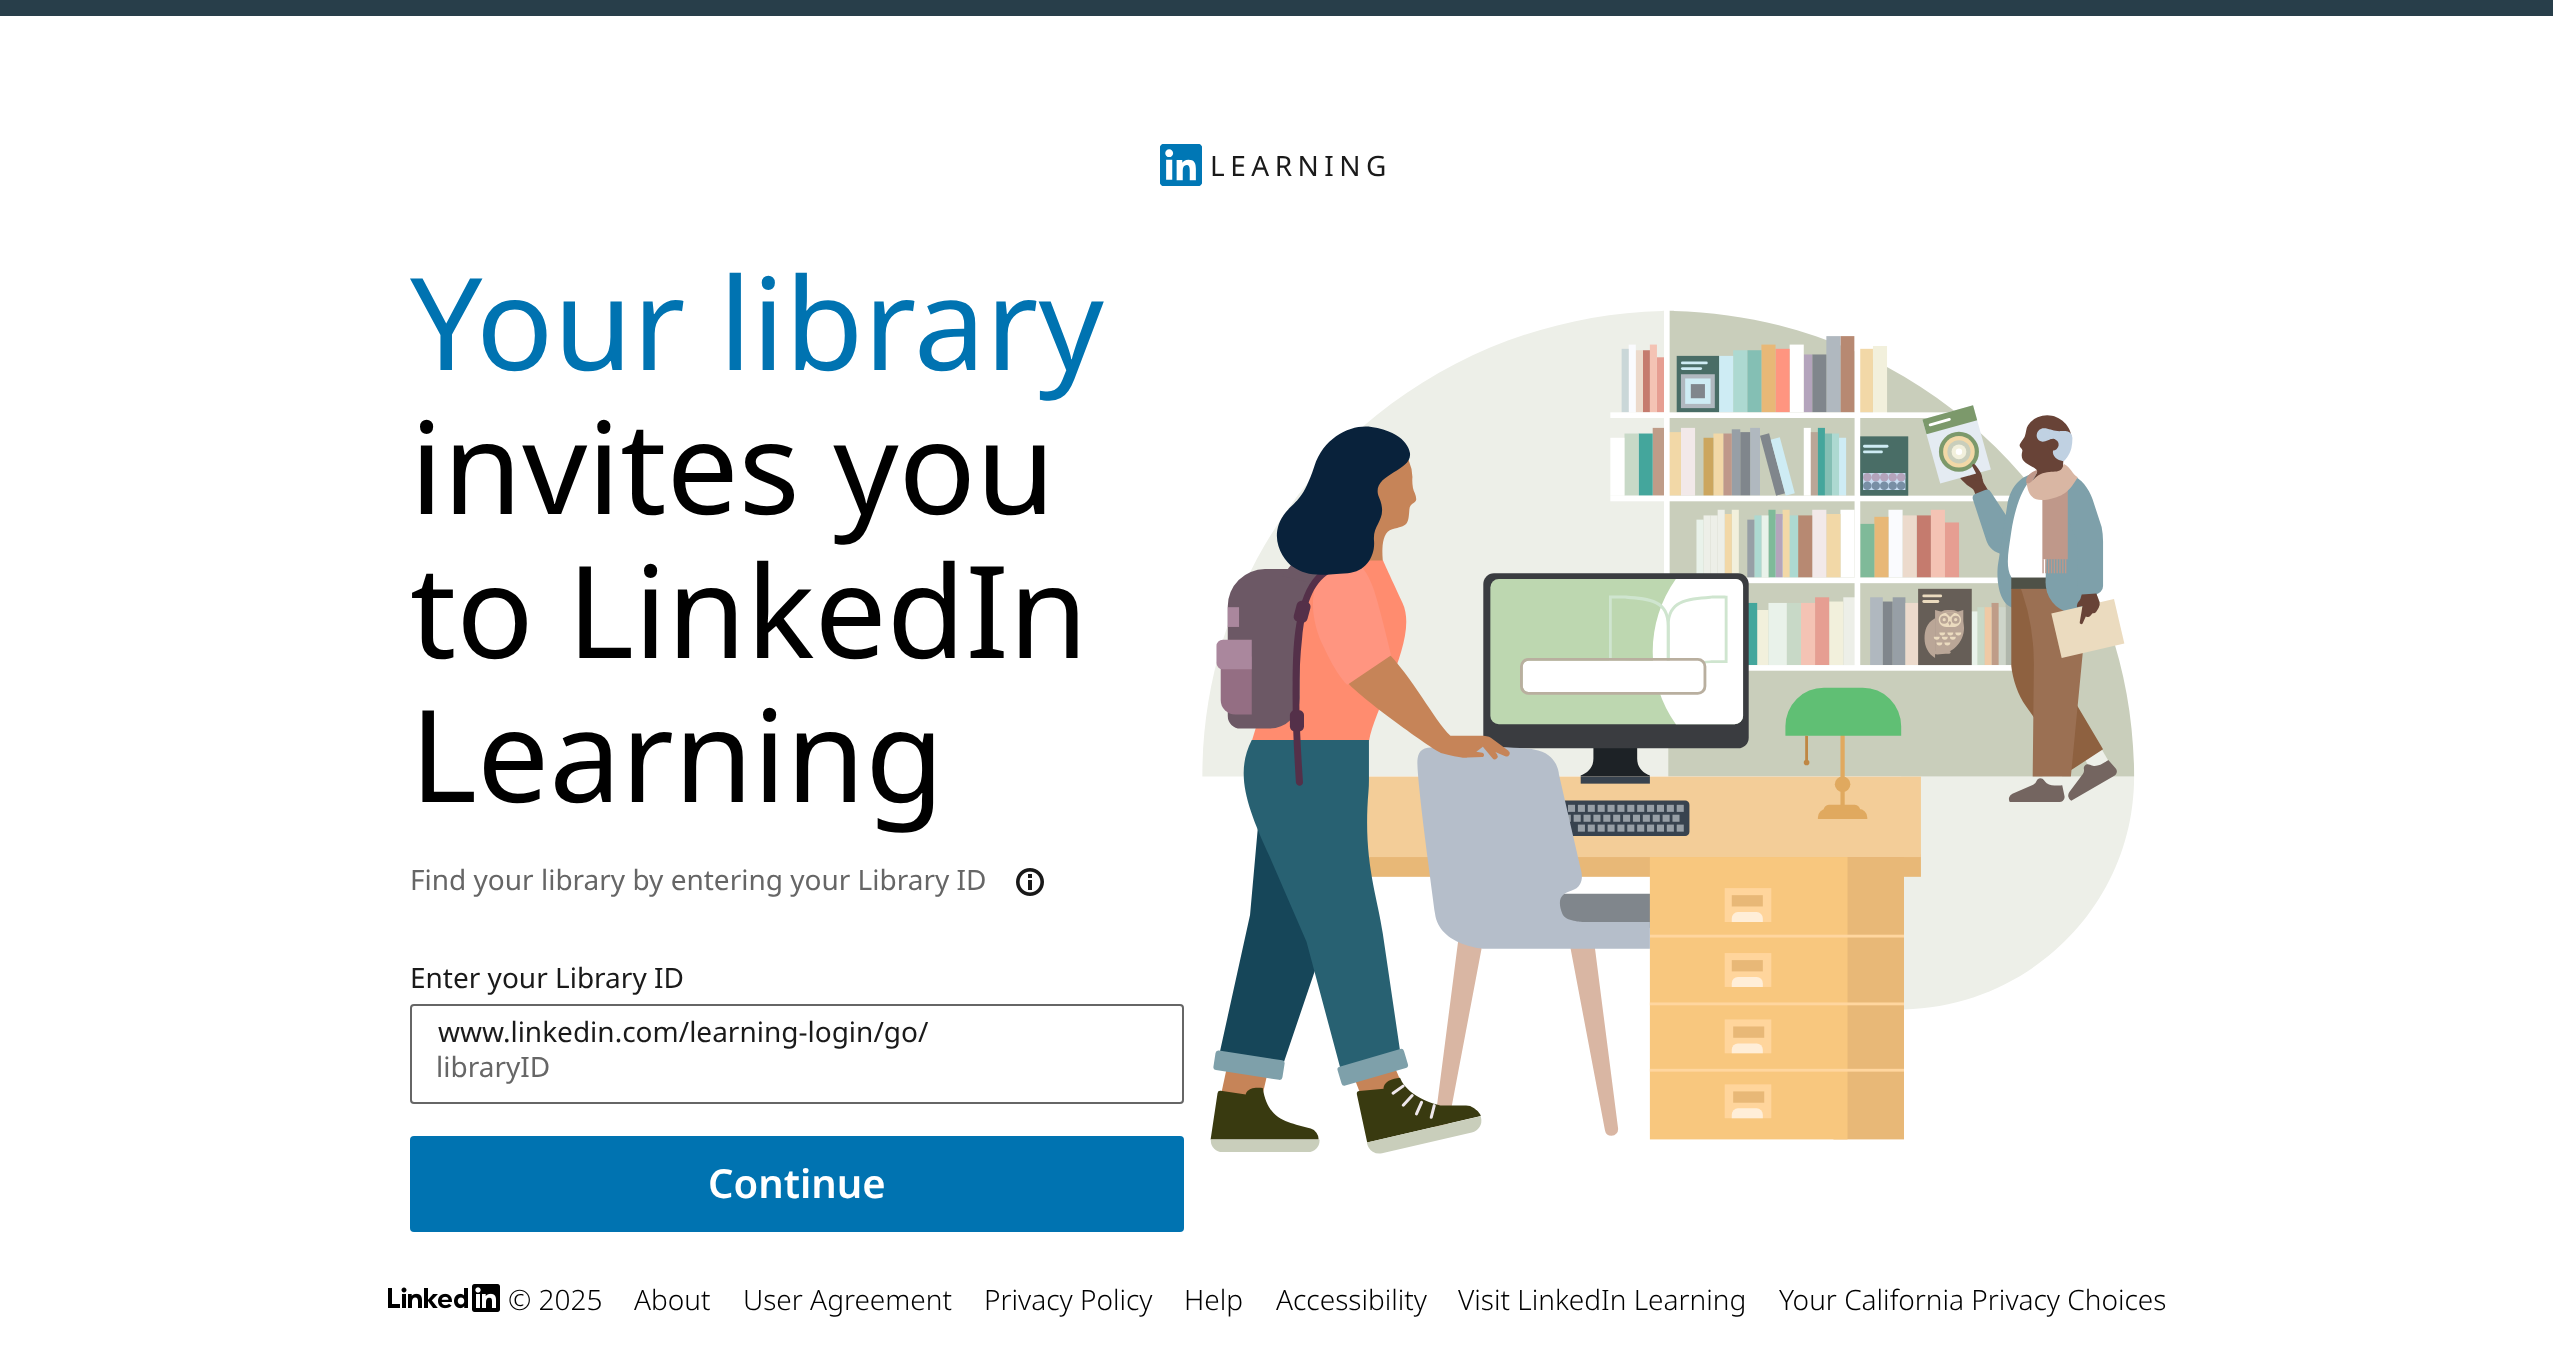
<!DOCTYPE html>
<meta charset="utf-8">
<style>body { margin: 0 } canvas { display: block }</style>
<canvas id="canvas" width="2553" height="1353"></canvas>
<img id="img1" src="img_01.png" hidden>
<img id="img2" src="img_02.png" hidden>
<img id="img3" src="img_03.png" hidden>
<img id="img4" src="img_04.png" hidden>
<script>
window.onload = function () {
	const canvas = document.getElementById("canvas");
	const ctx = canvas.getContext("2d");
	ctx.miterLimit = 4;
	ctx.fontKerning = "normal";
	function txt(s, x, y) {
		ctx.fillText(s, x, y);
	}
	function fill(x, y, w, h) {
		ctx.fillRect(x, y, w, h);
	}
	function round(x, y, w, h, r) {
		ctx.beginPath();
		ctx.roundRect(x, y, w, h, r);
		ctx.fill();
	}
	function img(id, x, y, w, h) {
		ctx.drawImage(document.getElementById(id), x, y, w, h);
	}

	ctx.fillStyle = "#FFFFFF";
	fill(0, 0, 2553, 1353);
	ctx.fillStyle = "#283E4A";
	fill(0, 0, 2553, 16);
	img("img1", 1160, 144, 42, 42);
	img("img2", 1016, 868, 28, 28);
	ctx.beginPath();
	ctx.roundRect(411, 1005, 772, 98, 3);
	ctx.strokeStyle = "#666666";
	ctx.lineWidth = 2;
	ctx.stroke();
	ctx.fillStyle = "#0073B1";
	round(410, 1136, 774, 96, 4);
	img("img3", 1202, 310, 933, 844);
	img("img4", 388, 1284, 112, 28);
	ctx.letterSpacing = "5.5px";
	ctx.font = "28px Noto Sans";
	ctx.fillStyle = "#1A1A1A";
	txt("LEARNING", 1210, 176);
	ctx.letterSpacing = "0px";
	ctx.font = "128px Noto Sans";
	ctx.fillStyle = "#0073B1";
	txt("Your library", 410, 370);
	ctx.fillStyle = "#000000";
	txt("invites you", 410, 514);
	txt("to LinkedIn", 410, 658);
	txt("Learning", 410, 802);
	ctx.font = "28px Noto Sans";
	ctx.fillStyle = "#666666";
	txt("Find your library by entering your Library ID", 410, 890);
	ctx.fillStyle = "#1A1A1A";
	txt("Enter your Library ID", 410, 988);
	txt("www.linkedin.com/learning-login/go/", 438, 1042);
	ctx.fillStyle = "#666666";
	txt("libraryID", 436, 1077);
	ctx.font = "600 40px Noto Sans";
	ctx.fillStyle = "#FFFFFF";
	txt("Continue", 708, 1198);
	ctx.font = "300 28px Noto Sans";
	ctx.fillStyle = "#000000";
	txt("© 2025", 508, 1310);
	txt("About", 634, 1310);
	txt("User Agreement", 743, 1310);
	txt("Privacy Policy", 984, 1310);
	txt("Help", 1184, 1310);
	txt("Accessibility", 1276, 1310);
	txt("Visit LinkedIn Learning", 1458, 1310);
	txt("Your California Privacy Choices", 1779, 1310);
};
</script>
